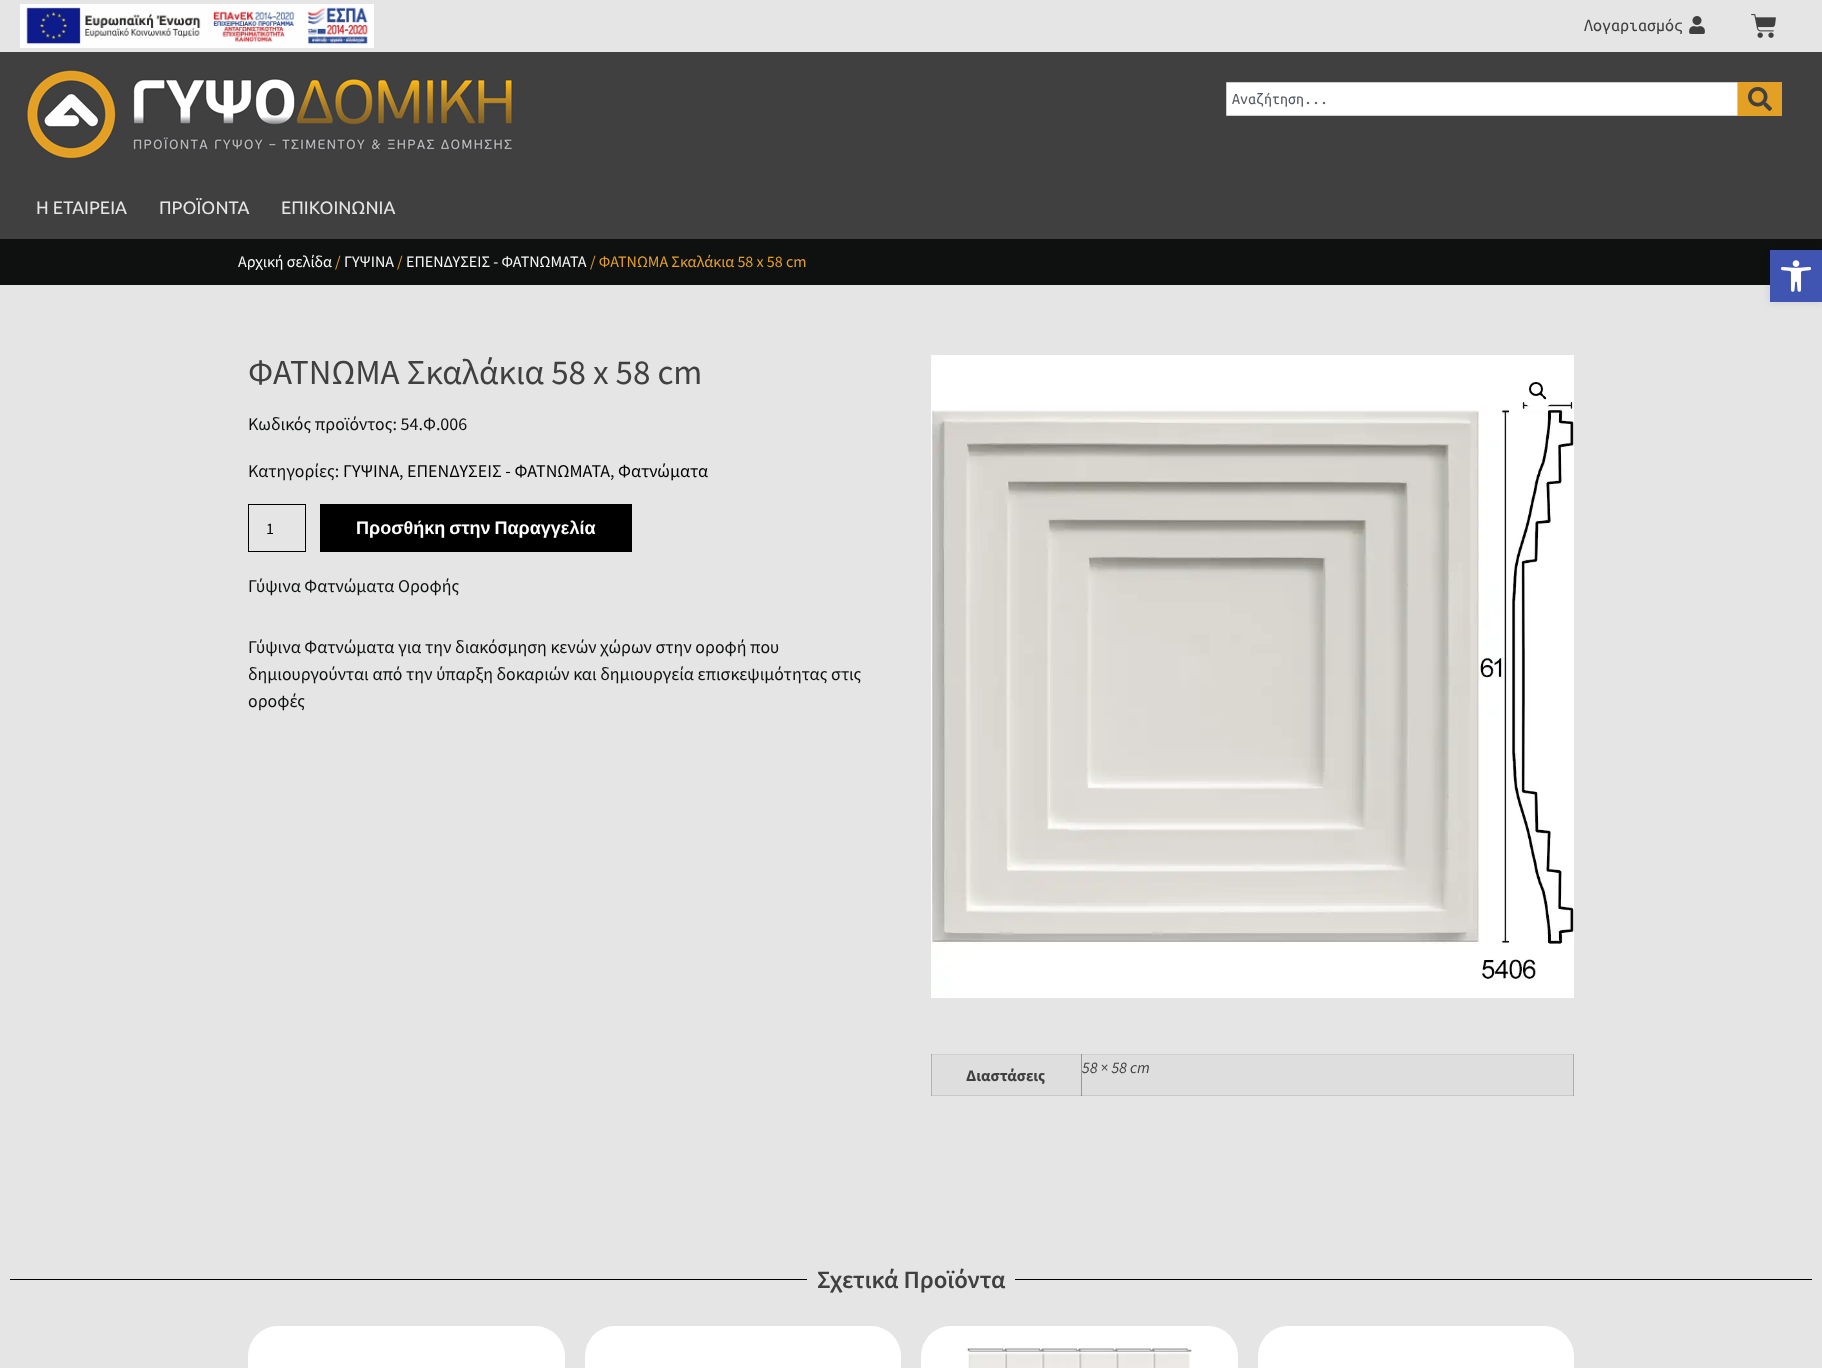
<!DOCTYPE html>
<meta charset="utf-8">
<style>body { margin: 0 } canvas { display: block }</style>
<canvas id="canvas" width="1822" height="1368"></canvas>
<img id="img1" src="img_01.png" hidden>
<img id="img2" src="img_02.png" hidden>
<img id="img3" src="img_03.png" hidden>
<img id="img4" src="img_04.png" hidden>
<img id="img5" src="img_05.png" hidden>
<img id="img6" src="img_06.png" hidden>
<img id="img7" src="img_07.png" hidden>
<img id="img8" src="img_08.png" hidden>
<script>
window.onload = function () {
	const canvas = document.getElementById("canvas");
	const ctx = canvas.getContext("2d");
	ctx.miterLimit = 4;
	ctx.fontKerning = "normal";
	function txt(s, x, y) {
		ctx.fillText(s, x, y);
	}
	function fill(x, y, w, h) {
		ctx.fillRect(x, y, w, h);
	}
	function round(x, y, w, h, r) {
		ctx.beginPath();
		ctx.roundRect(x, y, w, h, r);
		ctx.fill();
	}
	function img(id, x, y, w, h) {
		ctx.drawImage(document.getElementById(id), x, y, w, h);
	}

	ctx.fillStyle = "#E5E5E5";
	fill(0, 0, 1822, 1368);
	ctx.fillStyle = "#B3B3B3";
	fill(931, 1054, 1, 42);
	ctx.fillStyle = "#A7A7A7";
	fill(931, 1095, 1, 1);
	img("img1", 20, 4, 354, 44);
	img("img2", 1689, 16, 16, 18);
	img("img3", 1751, 14, 25, 24);
	ctx.fillStyle = "#404041";
	fill(0, 52, 1822, 187);
	img("img4", 26, 69, 487, 90);
	ctx.fillStyle = "#FFFFFF";
	ctx.beginPath();
	ctx.rect(1226.5, 82.5, 511, 33);
	ctx.fill();
	ctx.strokeStyle = "#CDCDCD";
	ctx.stroke();
	ctx.fillStyle = "#E4A024";
	fill(1738, 82, 44, 34);
	img("img5", 1748, 87, 24, 24);
	ctx.fillStyle = "#0F1111";
	fill(0, 239, 1822, 46);
	ctx.strokeStyle = "#000000";
	ctx.strokeRect(248.5, 504.5, 57, 47);
	ctx.fillStyle = "#000000";
	fill(320, 504, 312, 48);
	img("img6", 931, 355, 643, 643);
	ctx.fillStyle = "#FFFFFF";
	ctx.beginPath();
	ctx.arc(1538, 391, 18, 0, Math.PI * 2);
	ctx.fill();
	ctx.beginPath();
	ctx.arc(1536, 389, 6, 0, Math.PI * 2);
	ctx.lineWidth = 2;
	ctx.stroke();
	ctx.fillStyle = "#000000";
	ctx.beginPath();
	ctx.moveTo(1540, 393);
	ctx.bezierCurveTo(1541.5, 392, 1543, 394.5, 1543.5, 395.5);
	ctx.bezierCurveTo(1544.5, 396, 1547, 397.5, 1546, 399);
	ctx.bezierCurveTo(1544.5, 400, 1543, 397.5, 1542.5, 396.5);
	ctx.bezierCurveTo(1541.5, 396, 1539, 394.5, 1540, 393);
	ctx.closePath();
	ctx.fill();
	ctx.fillStyle = "#CECECE";
	fill(931, 1054, 643, 1);
	ctx.fillStyle = "#A7A7A7";
	fill(931, 1054, 1, 1);
	ctx.fillStyle = "#949494";
	fill(1081, 1054, 1, 1);
	ctx.fillStyle = "#A7A7A7";
	fill(1573, 1054, 1, 1);
	ctx.fillStyle = "#DEDEDE";
	fill(932, 1055, 149, 40);
	ctx.fillStyle = "#C8C8C8";
	fill(932, 1095, 642, 1);
	ctx.fillStyle = "#989898";
	fill(1081, 1055, 1, 41);
	ctx.fillStyle = "#838383";
	fill(1081, 1095, 1, 1);
	ctx.fillStyle = "#DEDEDE";
	fill(1082, 1055, 491, 40);
	ctx.fillStyle = "#AFAFAF";
	fill(1573, 1055, 1, 41);
	ctx.fillStyle = "#9E9E9E";
	fill(1573, 1095, 1, 1);
	ctx.fillStyle = "#000000";
	fill(10, 1279, 797, 1);
	fill(1015, 1279, 797, 1);
	ctx.fillStyle = "#FFFFFF";
	round(248, 1326, 317, 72, 30);
	round(585, 1326, 316, 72, 30);
	round(921, 1326, 317, 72, 30);
	img("img7", 967, 1348, 225, 20);
	round(1258, 1326, 316, 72, 30);
	ctx.fillStyle = "rgba(0, 0, 0, 0.1)";
	ctx.filter = "blur(5px)";
	ctx.beginPath();
	ctx.rect(1770, 250, 52, 52);
	ctx.fill();
	ctx.filter = "none";
	ctx.fillStyle = "#4054B2";
	fill(1770, 250, 52, 52);
	img("img8", 1781, 260, 30, 32);
	ctx.font = "18px Ubuntu Mono";
	ctx.fillStyle = "#404041";
	txt("Λογαριασμός", 1584, 31);
	ctx.font = "16px Ubuntu Mono";
	ctx.fillStyle = "#515962";
	txt("Αναζήτηση...", 1232, 104);
	ctx.font = "18px Ubuntu";
	ctx.fillStyle = "#E5E5E5";
	txt("Η ΕΤΑΙΡΕΙΑ", 36, 214);
	txt("ΠΡΟΪΟΝΤΑ", 159, 214);
	txt("ΕΠΙΚΟΙΝΩΝΙΑ", 281, 214);
	ctx.font = "16px Source Sans Pro";
	ctx.fillStyle = "#F8F8F8";
	txt("Αρχική σελίδα", 238, 267);
	ctx.fillStyle = "#E4A024";
	txt("/", 335, 267);
	ctx.fillStyle = "#F8F8F8";
	txt("ΓΥΨΙΝΑ", 344, 267);
	ctx.fillStyle = "#E4A024";
	txt("/", 397, 267);
	ctx.fillStyle = "#F8F8F8";
	txt("ΕΠΕΝΔΥΣΕΙΣ - ΦΑΤΝΩΜΑΤΑ", 406, 267);
	ctx.fillStyle = "#E4A024";
	txt("/ ΦΑΤΝΩΜΑ Σκαλάκια 58 x 58 cm", 590, 267);
	ctx.font = "35px Source Sans Pro";
	ctx.fillStyle = "#404041";
	txt("ΦΑΤΝΩΜΑ Σκαλάκια 58 x 58 cm", 248, 384);
	ctx.font = "18px Source Sans Pro";
	ctx.fillStyle = "#0F1111";
	txt("Κωδικός προϊόντος: 54.Φ.006", 248, 430);
	txt("Κατηγορίες:", 248, 477);
	ctx.fillStyle = "#000000";
	txt("ΓΥΨΙΝΑ", 343, 477);
	ctx.fillStyle = "#0F1111";
	txt(",", 399, 477);
	ctx.fillStyle = "#000000";
	txt("ΕΠΕΝΔΥΣΕΙΣ - ΦΑΤΝΩΜΑΤΑ", 407, 477);
	ctx.fillStyle = "#0F1111";
	txt(",", 610, 477);
	ctx.fillStyle = "#000000";
	txt("Φατνώματα", 618, 477);
	ctx.font = "16px Source Sans Pro";
	txt("1", 266, 534);
	ctx.wordSpacing = "-1px";
	ctx.font = "bold 18px Liberation Sans";
	ctx.fillStyle = "#FFFFFF";
	txt("Προσθήκη στην Παραγγελία", 356, 534);
	ctx.wordSpacing = "0px";
	ctx.font = "18px Source Sans Pro";
	ctx.fillStyle = "#0F1111";
	txt("Γύψινα Φατνώματα Οροφής", 248, 592);
	txt("Γύψινα Φατνώματα για την διακόσμηση κενών χώρων στην οροφή που", 248, 653);
	txt("δημιουργούνται από την ύπαρξη δοκαριών και δημιουργεία επισκεψιμότητας στις", 248, 680);
	txt("οροφές", 248, 707);
	ctx.font = "bold 16px Source Sans Pro";
	ctx.fillStyle = "#404041";
	txt("Διαστάσεις", 966, 1081);
	ctx.font = "italic 16px Source Sans Pro";
	txt("58 × 58 cm", 1082, 1073);
	ctx.font = "600 25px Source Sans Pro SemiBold";
	txt("Σχετικά Προϊόντα", 817, 1288);
};
</script>
